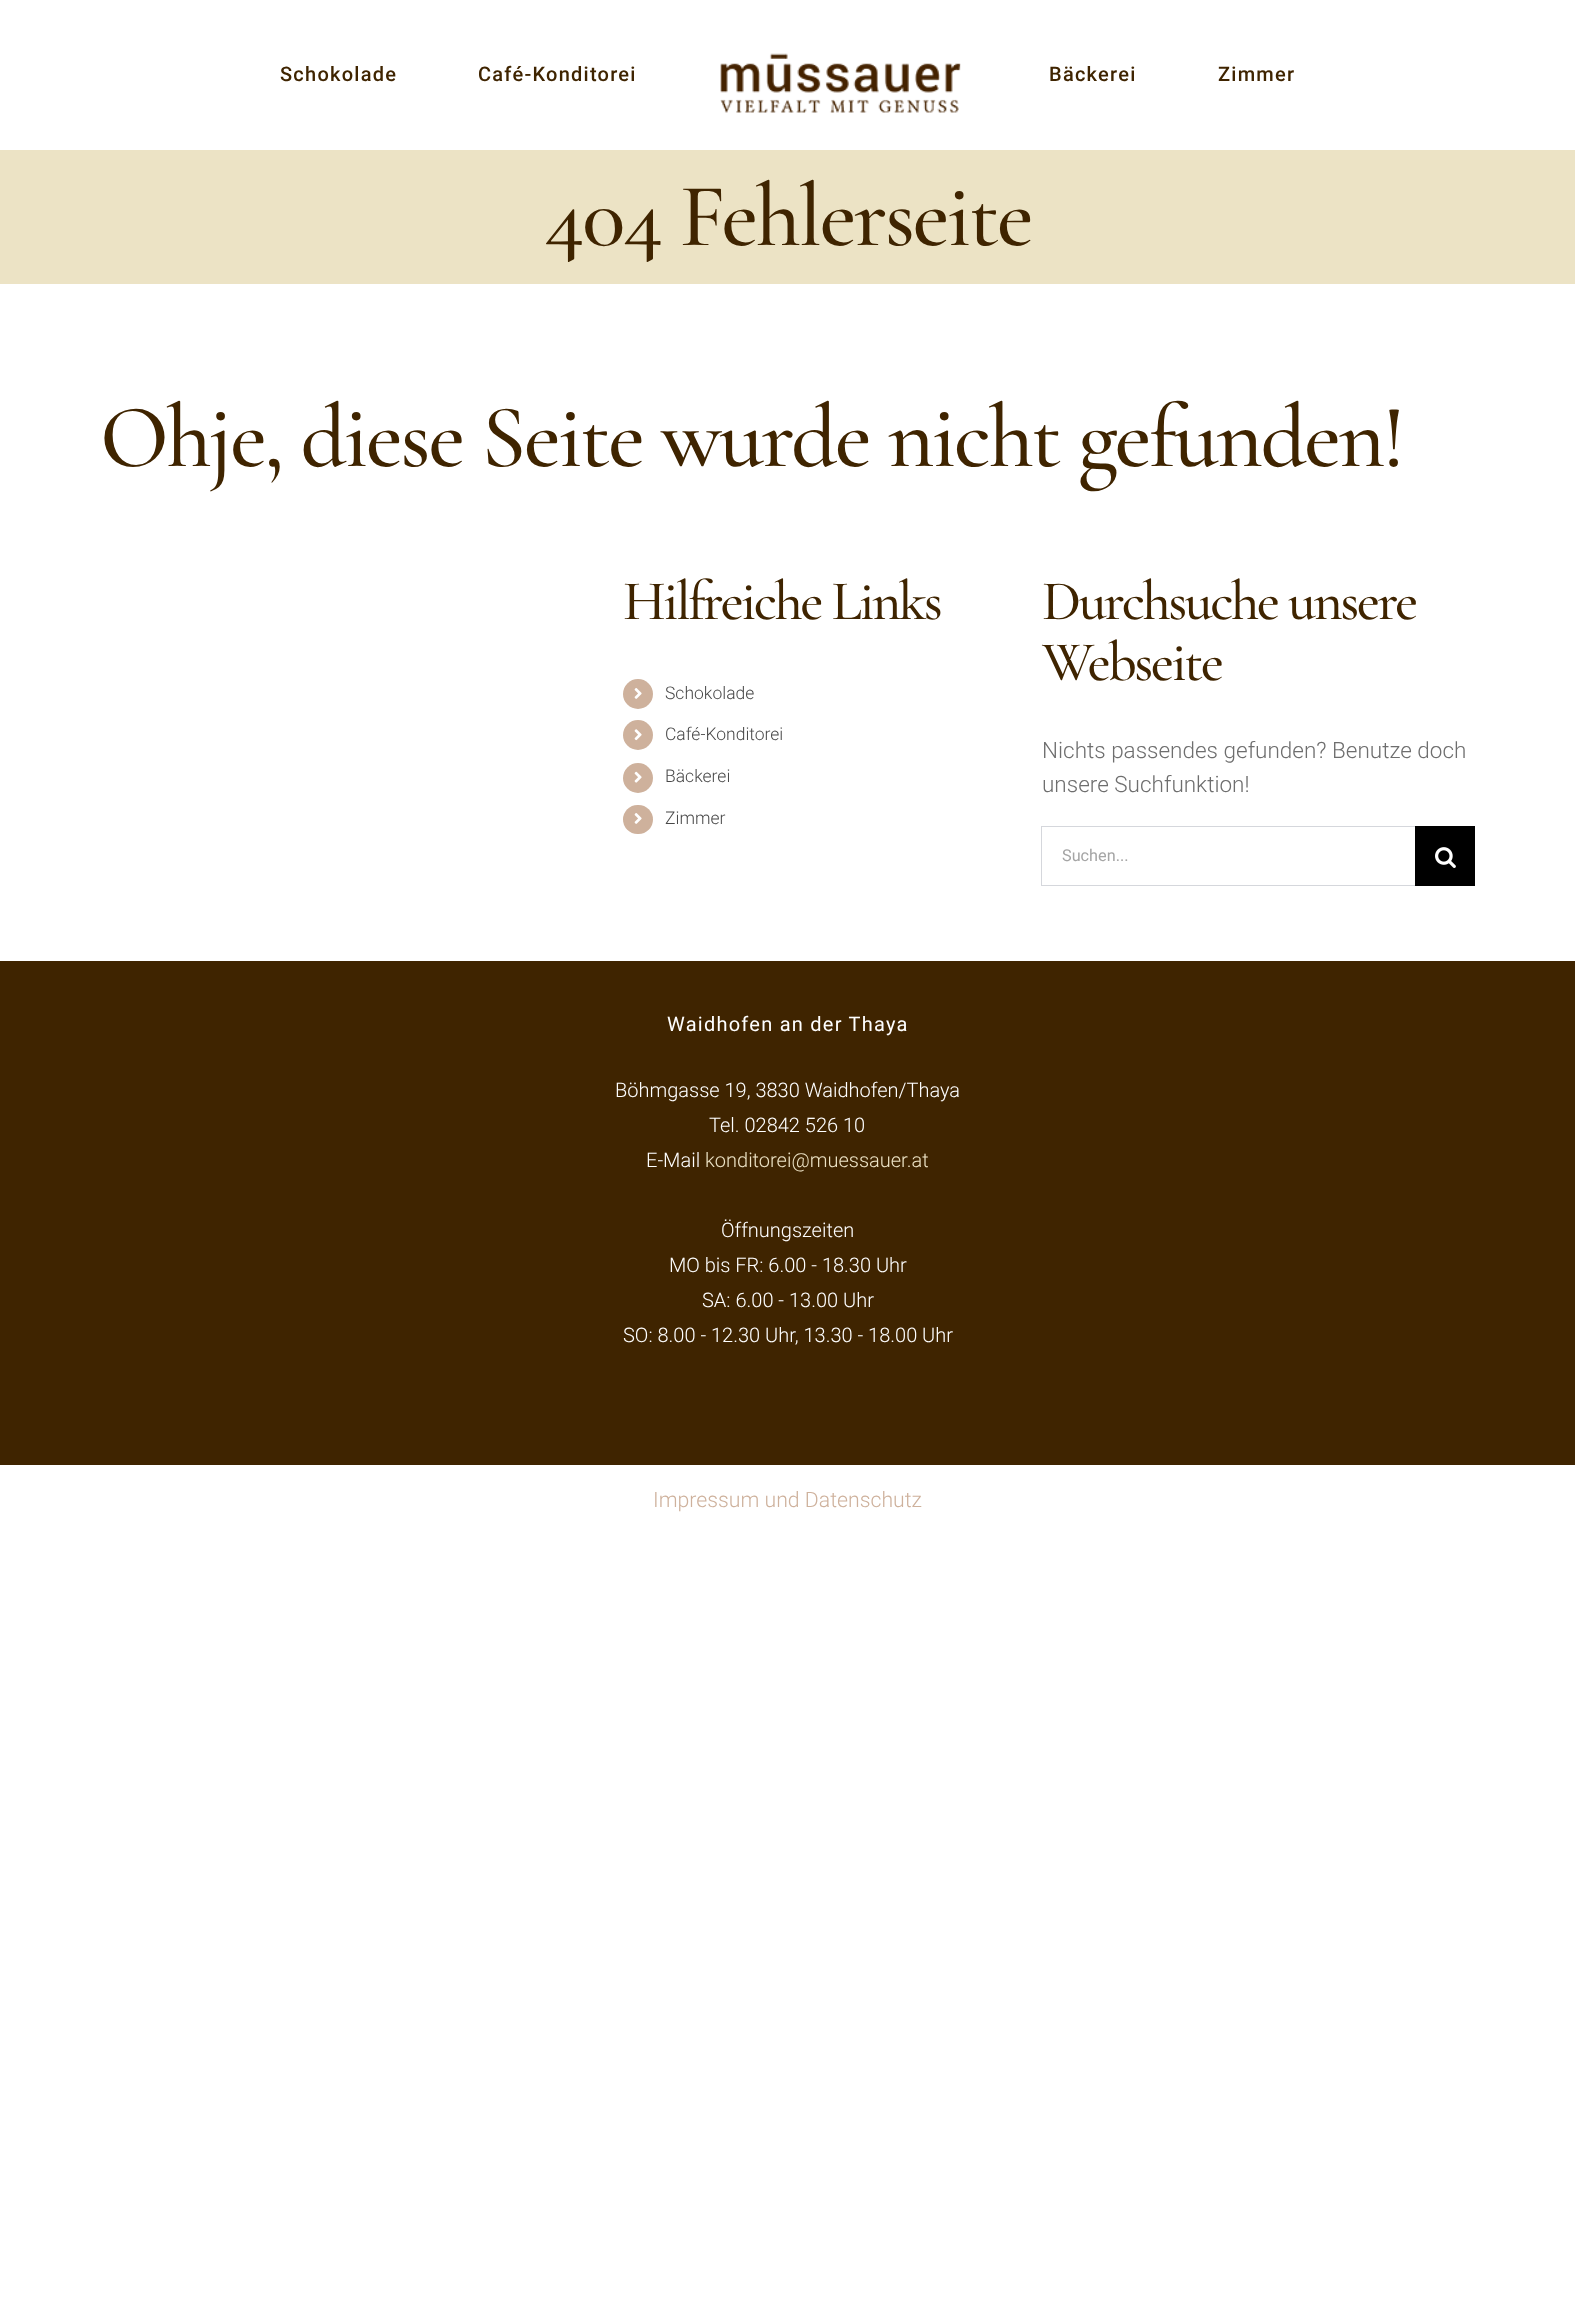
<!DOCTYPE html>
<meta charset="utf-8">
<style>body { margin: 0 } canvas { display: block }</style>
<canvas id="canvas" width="1575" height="2314"></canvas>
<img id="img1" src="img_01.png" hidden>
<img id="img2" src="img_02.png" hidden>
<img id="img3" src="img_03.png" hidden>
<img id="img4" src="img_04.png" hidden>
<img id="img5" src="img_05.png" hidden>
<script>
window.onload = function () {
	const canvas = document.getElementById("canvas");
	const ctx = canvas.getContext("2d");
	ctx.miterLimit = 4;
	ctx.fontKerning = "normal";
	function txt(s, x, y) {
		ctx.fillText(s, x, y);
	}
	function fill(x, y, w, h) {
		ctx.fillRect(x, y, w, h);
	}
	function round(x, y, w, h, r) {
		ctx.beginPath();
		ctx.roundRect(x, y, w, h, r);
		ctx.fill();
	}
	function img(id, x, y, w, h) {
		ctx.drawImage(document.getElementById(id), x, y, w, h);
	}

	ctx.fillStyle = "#FFFFFF";
	fill(0, 0, 1575, 2314);
	img("img1", 720, 53, 241, 60);
	ctx.fillStyle = "#ECE3C5";
	fill(0, 150, 1575, 134);
	ctx.fillStyle = "#CEB19C";
	ctx.beginPath();
	ctx.arc(638, 694, 15, 0, Math.PI * 2);
	ctx.fill();
	img("img2", 634, 688, 8, 11);
	ctx.beginPath();
	ctx.arc(638, 735, 15, 0, Math.PI * 2);
	ctx.fill();
	img("img3", 634, 729, 8, 12);
	ctx.beginPath();
	ctx.arc(638, 778, 15, 0, Math.PI * 2);
	ctx.fill();
	img("img4", 634, 771, 8, 12);
	round(623, 805, 30, 29, 14.5);
	img("img2", 634, 813, 8, 11);
	ctx.fillStyle = "#D5D7DC";
	fill(1041, 826, 374, 1);
	fill(1041, 885, 374, 1);
	fill(1041, 826, 1, 60);
	ctx.fillStyle = "#000000";
	fill(1415, 826, 60, 60);
	img("img5", 1435, 847, 21, 21);
	ctx.fillStyle = "#3F2400";
	fill(0, 961, 1575, 504);
	ctx.letterSpacing = "1.25px";
	ctx.font = "500 20px Roboto";
	txt("Schokolade", 280, 81);
	txt("Café-Konditorei", 478, 81);
	txt("Bäckerei", 1049, 81);
	txt("Zimmer", 1218, 81);
	ctx.letterSpacing = "-2.5px";
	ctx.font = "300 90px Cormorant Garamond";
	txt("404 Fehlerseite", 544, 245);
	txt("Ohje, diese Seite wurde nicht gefunden!", 100, 466);
	ctx.font = "300 56.25px Cormorant Garamond";
	txt("Hilfreiche Links", 623, 619);
	ctx.letterSpacing = "0px";
	ctx.font = "300 17.5px Roboto";
	ctx.fillStyle = "#494949";
	txt("Schokolade", 665, 699);
	txt("Café-Konditorei", 665, 740);
	txt("Bäckerei", 665, 782);
	txt("Zimmer", 665, 824);
	ctx.letterSpacing = "-2.5px";
	ctx.font = "300 56.25px Cormorant Garamond";
	ctx.fillStyle = "#3F2400";
	txt("Durchsuche unsere", 1042, 619);
	txt("Webseite", 1042, 680);
	ctx.letterSpacing = "0px";
	ctx.font = "300 22.5px Roboto";
	ctx.fillStyle = "#6E6E6E";
	txt("Nichts passendes gefunden? Benutze doch", 1042, 758);
	txt("unsere Suchfunktion!", 1042, 792);
	ctx.font = "16.25px Roboto";
	ctx.fillStyle = "#A5A5A5";
	txt("Suchen...", 1062, 861);
	ctx.letterSpacing = "1.25px";
	ctx.font = "20px Roboto";
	ctx.fillStyle = "#FFFFFF";
	txt("Waidhofen an der Thaya", 667, 1031);
	ctx.letterSpacing = "0px";
	ctx.font = "300 20px Roboto";
	txt("Böhmgasse 19, 3830 Waidhofen/Thaya", 615, 1097);
	txt("Tel. 02842 526 10", 709, 1132);
	txt("E-Mail", 646, 1167);
	ctx.fillStyle = "#EDE3C5";
	txt("konditorei@muessauer.at", 705, 1167);
	ctx.fillStyle = "#FFFFFF";
	txt("Öffnungszeiten", 721, 1237);
	txt("MO bis FR: 6.00 - 18.30 Uhr", 669, 1272);
	txt("SA: 6.00 - 13.00 Uhr", 702, 1307);
	txt("SO: 8.00 - 12.30 Uhr, 13.30 - 18.00 Uhr", 623, 1342);
	ctx.font = "300 21.25px Roboto";
	ctx.fillStyle = "#CEB19C";
	txt("Impressum und Datenschutz", 653, 1507);
};
</script>
